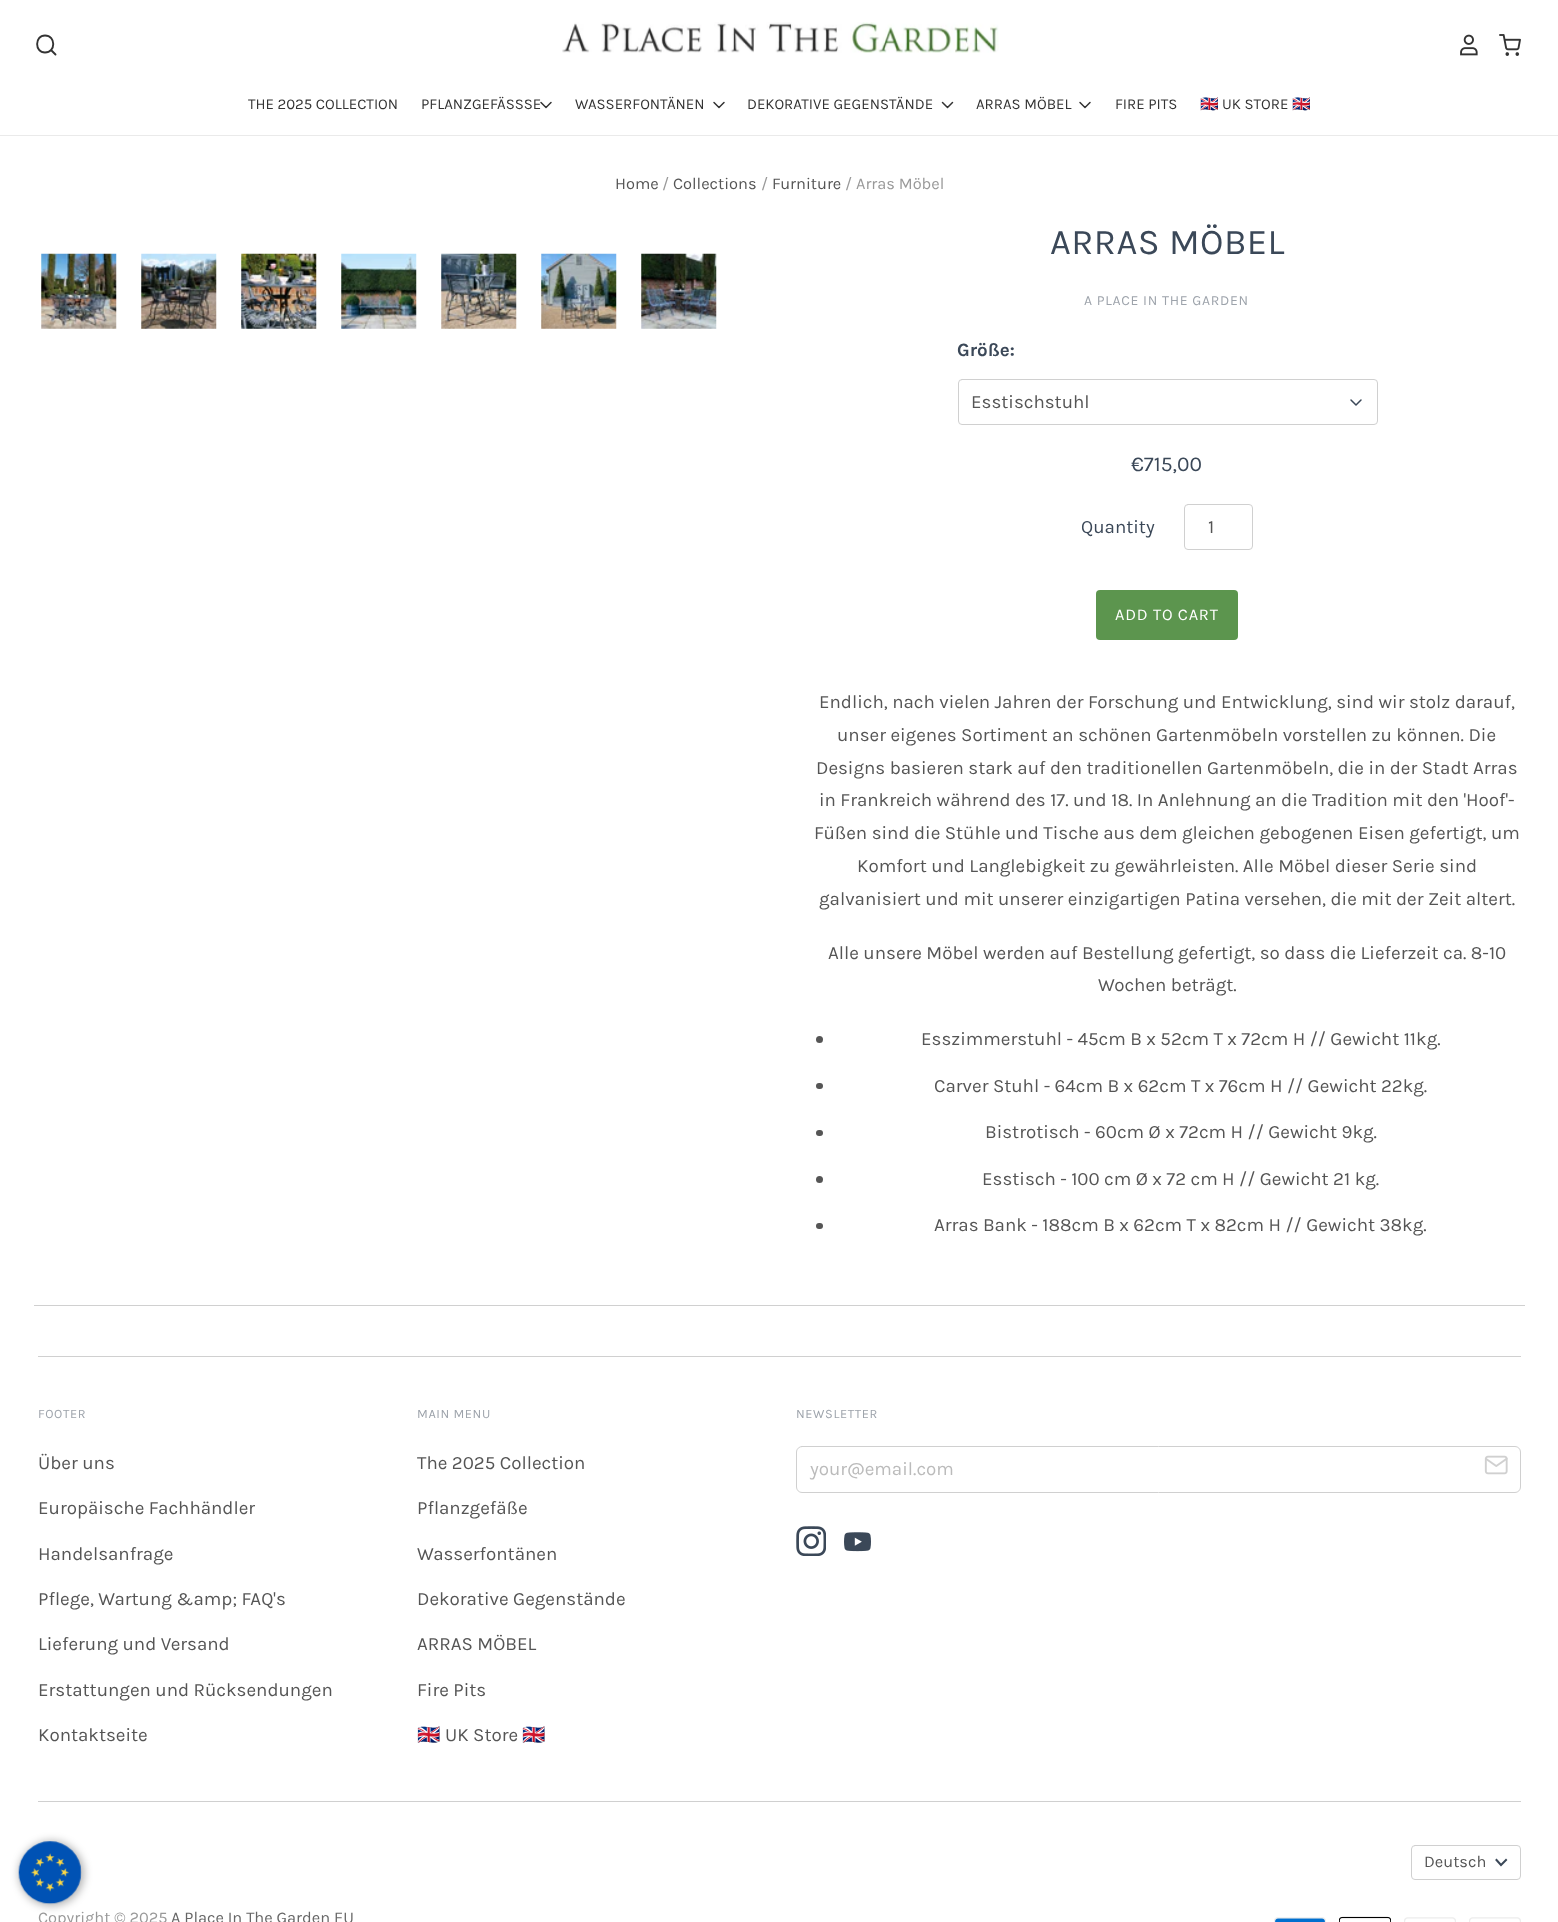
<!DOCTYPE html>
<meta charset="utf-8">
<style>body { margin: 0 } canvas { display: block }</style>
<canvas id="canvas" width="1558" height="1922"></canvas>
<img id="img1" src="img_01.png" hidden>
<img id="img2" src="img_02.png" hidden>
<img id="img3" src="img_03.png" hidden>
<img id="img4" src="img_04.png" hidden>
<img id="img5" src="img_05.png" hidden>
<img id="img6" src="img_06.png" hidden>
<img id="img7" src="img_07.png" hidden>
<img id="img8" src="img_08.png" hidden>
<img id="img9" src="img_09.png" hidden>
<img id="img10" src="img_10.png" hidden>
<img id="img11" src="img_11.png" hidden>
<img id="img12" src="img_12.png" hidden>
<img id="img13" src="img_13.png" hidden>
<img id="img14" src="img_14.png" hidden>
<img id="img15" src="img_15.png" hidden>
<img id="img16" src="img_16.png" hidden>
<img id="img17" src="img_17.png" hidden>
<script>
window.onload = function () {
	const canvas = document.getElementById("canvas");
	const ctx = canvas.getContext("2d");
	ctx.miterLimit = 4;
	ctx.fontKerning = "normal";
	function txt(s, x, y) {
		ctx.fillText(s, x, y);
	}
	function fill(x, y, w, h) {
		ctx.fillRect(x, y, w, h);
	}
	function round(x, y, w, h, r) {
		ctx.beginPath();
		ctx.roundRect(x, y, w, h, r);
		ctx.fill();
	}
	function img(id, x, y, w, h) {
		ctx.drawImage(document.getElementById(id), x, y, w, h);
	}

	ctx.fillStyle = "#FFFFFF";
	fill(0, 0, 1558, 1922);
	ctx.fillStyle = "#EAEAEA";
	fill(0, 135, 1558, 1);
	ctx.beginPath();
	ctx.moveTo(45, 35.5);
	ctx.bezierCurveTo(34.5, 35.5, 34.5, 52.5, 45, 52.5);
	ctx.bezierCurveTo(56, 52.5, 56, 35.5, 45, 35.5);
	ctx.closePath();
	ctx.moveTo(55.5, 54.5);
	ctx.lineTo(51, 50);
	ctx.closePath();
	ctx.strokeStyle = "#333333";
	ctx.lineWidth = 1.9;
	ctx.lineCap = "round";
	ctx.lineJoin = "round";
	ctx.stroke();
	img("img1", 562, 22, 437, 31);
	img("img2", 1460, 34, 18, 22);
	img("img3", 1499, 34, 22, 22);
	ctx.beginPath();
	ctx.moveTo(541, 102.5);
	ctx.lineTo(546, 107.5);
	ctx.lineTo(551, 102.5);
	ctx.lineWidth = 1.5;
	ctx.stroke();
	ctx.beginPath();
	ctx.moveTo(714, 102.5);
	ctx.lineTo(719, 107.5);
	ctx.lineTo(724, 102.5);
	ctx.stroke();
	ctx.beginPath();
	ctx.moveTo(942.5, 102.5);
	ctx.lineTo(947.5, 107.5);
	ctx.lineTo(952.5, 102.5);
	ctx.stroke();
	ctx.beginPath();
	ctx.moveTo(1080, 102.5);
	ctx.lineTo(1085, 107.5);
	ctx.lineTo(1090, 102.5);
	ctx.stroke();
	img("img4", 41, 253, 76, 76);
	img("img5", 141, 253, 76, 76);
	img("img6", 241, 253, 76, 76);
	img("img7", 341, 253, 76, 76);
	img("img8", 441, 253, 76, 76);
	img("img9", 541, 253, 76, 76);
	img("img10", 641, 253, 76, 76);
	ctx.beginPath();
	ctx.roundRect(958.5, 379.5, 419, 45, 3.5);
	ctx.strokeStyle = "#D0D0D0";
	ctx.lineWidth = 1;
	ctx.lineJoin = "miter";
	ctx.stroke();
	ctx.beginPath();
	ctx.moveTo(1351, 400);
	ctx.lineTo(1356, 405);
	ctx.lineTo(1361, 400);
	ctx.strokeStyle = "#3B4858";
	ctx.lineWidth = 1.5;
	ctx.lineJoin = "round";
	ctx.stroke();
	ctx.beginPath();
	ctx.roundRect(1184.5, 504.5, 68, 45, 3.5);
	ctx.strokeStyle = "#D0D0D0";
	ctx.lineWidth = 1;
	ctx.lineJoin = "miter";
	ctx.stroke();
	ctx.fillStyle = "#5C954E";
	round(1096, 590, 142, 50, 4);
	ctx.fillStyle = "#555555";
	ctx.beginPath();
	ctx.arc(819.5, 1039.5, 3.5, 0, Math.PI * 2);
	ctx.fill();
	round(816, 1083, 7, 6, 3);
	round(816, 1130, 7, 6, 3);
	ctx.beginPath();
	ctx.arc(819.5, 1179.5, 3.5, 0, Math.PI * 2);
	ctx.fill();
	round(816, 1223, 7, 6, 3);
	ctx.fillStyle = "#D0D0D0";
	fill(34, 1305, 1491, 1);
	fill(38, 1356, 1483, 1);
	ctx.beginPath();
	ctx.roundRect(796.5, 1446.5, 724, 46, 5.5);
	ctx.stroke();
	img("img11", 1484, 1455, 24, 20);
	img("img12", 796, 1526, 30, 30);
	img("img13", 844, 1532, 27, 20);
	fill(38, 1801, 1483, 1);
	ctx.beginPath();
	ctx.roundRect(1411.5, 1845.5, 109, 34, 3.5);
	ctx.stroke();
	ctx.beginPath();
	ctx.moveTo(1501, 1865);
	ctx.lineTo(1506, 1860);
	ctx.moveTo(1501, 1865);
	ctx.lineTo(1496.5, 1860);
	ctx.strokeStyle = "#3B4858";
	ctx.lineWidth = 2;
	ctx.lineCap = "square";
	ctx.stroke();
	img("img14", 1274, 1917, 52, 5);
	img("img15", 1339, 1916, 52, 6);
	img("img16", 1404, 1917, 52, 5);
	img("img16", 1469, 1917, 52, 5);
	ctx.fillStyle = "rgba(0, 0, 0, 0.31)";
	ctx.filter = "blur(4px)";
	ctx.beginPath();
	ctx.roundRect(19, 1841, 65, 65, 32.5);
	ctx.fill();
	ctx.filter = "none";
	img("img17", 18, 1841, 64, 64);
	ctx.font = "15px Karla";
	ctx.fillStyle = "#333333";
	txt("THE 2025 COLLECTION", 248, 109);
	txt("PFLANZGEFÄSSSE", 421, 109);
	txt("WASSERFONTÄNEN", 575, 109);
	txt("DEKORATIVE GEGENSTÄNDE", 747, 109);
	txt("ARRAS MÖBEL", 976, 109);
	txt("FIRE PITS", 1115, 109);
	ctx.font = "15px Noto Color Emoji";
	txt("🇬🇧", 1200, 109);
	ctx.font = "15px Karla";
	txt("UK STORE", 1222, 109);
	ctx.font = "15px Noto Color Emoji";
	txt("🇬🇧", 1292, 109);
	ctx.font = "16.4px Karla";
	ctx.fillStyle = "#555555";
	txt("Home", 615, 189);
	ctx.fillStyle = "#999999";
	txt("/", 662, 189);
	ctx.fillStyle = "#555555";
	txt("Collections", 673, 189);
	ctx.fillStyle = "#999999";
	txt("/", 761, 189);
	ctx.fillStyle = "#555555";
	txt("Furniture", 772, 189);
	ctx.fillStyle = "#999999";
	txt("/ Arras Möbel", 845, 189);
	ctx.letterSpacing = "0.4px";
	ctx.font = "36.25px Karla";
	ctx.fillStyle = "#3B4858";
	txt("ARRAS MÖBEL", 1050, 254);
	ctx.letterSpacing = "0.7px";
	ctx.font = "14px Karla";
	ctx.fillStyle = "#9DA3AB";
	txt("A PLACE IN THE GARDEN", 1084, 305);
	ctx.letterSpacing = "0px";
	ctx.font = "bold 18.75px Karla";
	ctx.fillStyle = "#3B4858";
	txt("Größe:", 957, 356);
	ctx.font = "18.75px Karla";
	ctx.fillStyle = "#555555";
	txt("Esstischstuhl", 971, 408);
	ctx.font = "21px Karla";
	ctx.fillStyle = "#3B4858";
	txt("€715,00", 1131, 471);
	ctx.font = "18.75px Karla";
	txt("Quantity", 1081, 533);
	ctx.fillStyle = "#555555";
	txt("1", 1208, 533);
	ctx.letterSpacing = "0.75px";
	ctx.font = "16.4px Karla";
	ctx.fillStyle = "#FFFFFF";
	txt("ADD TO CART", 1115, 620);
	ctx.letterSpacing = "0px";
	ctx.font = "18.75px Karla";
	ctx.fillStyle = "#555555";
	txt("Endlich, nach vielen Jahren der Forschung und Entwicklung, sind wir stolz darauf,", 819, 708);
	txt("unser eigenes Sortiment an schönen Gartenmöbeln vorstellen zu können. Die", 837, 741);
	txt("Designs basieren stark auf den traditionellen Gartenmöbeln, die in der Stadt Arras", 816, 774);
	txt("in Frankreich während des 17. und 18. In Anlehnung an die Tradition mit den 'Hoof'-", 819, 806);
	txt("Füßen sind die Stühle und Tische aus dem gleichen gebogenen Eisen gefertigt, um", 814, 839);
	txt("Komfort und Langlebigkeit zu gewährleisten. Alle Möbel dieser Serie sind", 857, 872);
	txt("galvanisiert und mit unserer einzigartigen Patina versehen, die mit der Zeit altert.", 819, 905);
	txt("Alle unsere Möbel werden auf Bestellung gefertigt, so dass die Lieferzeit ca. 8-10", 828, 959);
	txt("Wochen beträgt.", 1098, 991);
	txt("Esszimmerstuhl - 45cm B x 52cm T x 72cm H // Gewicht 11kg.", 921, 1045);
	txt("Carver Stuhl - 64cm B x 62cm T x 76cm H // Gewicht 22kg.", 934, 1092);
	txt("Bistrotisch - 60cm Ø x 72cm H // Gewicht 9kg.", 985, 1138);
	txt("Esstisch - 100 cm Ø x 72 cm H // Gewicht 21 kg.", 982, 1185);
	txt("Arras Bank - 188cm B x 62cm T x 82cm H // Gewicht 38kg.", 934, 1231);
	ctx.letterSpacing = "0.6px";
	ctx.font = "12.75px Karla";
	ctx.fillStyle = "#9DA3AB";
	txt("FOOTER", 38, 1418);
	ctx.letterSpacing = "0px";
	ctx.font = "18.75px Karla";
	ctx.fillStyle = "#555555";
	txt("Über uns", 38, 1469);
	txt("Europäische Fachhändler", 38, 1514);
	txt("Handelsanfrage", 38, 1560);
	txt("Pflege, Wartung &amp; FAQ's", 38, 1605);
	txt("Lieferung und Versand", 38, 1650);
	txt("Erstattungen und Rücksendungen", 38, 1696);
	txt("Kontaktseite", 38, 1741);
	ctx.letterSpacing = "0.6px";
	ctx.font = "12.75px Karla";
	ctx.fillStyle = "#9DA3AB";
	txt("MAIN MENU", 417, 1418);
	ctx.letterSpacing = "0px";
	ctx.font = "18.75px Karla";
	ctx.fillStyle = "#555555";
	txt("The 2025 Collection", 417, 1469);
	txt("Pflanzgefäße", 417, 1514);
	txt("Wasserfontänen", 417, 1560);
	txt("Dekorative Gegenstände", 417, 1605);
	txt("ARRAS MÖBEL", 417, 1650);
	txt("Fire Pits", 417, 1696);
	ctx.font = "18.75px Noto Color Emoji";
	txt("🇬🇧", 417, 1741);
	ctx.font = "18.75px Karla";
	txt("UK Store", 445, 1741);
	ctx.font = "18.75px Noto Color Emoji";
	txt("🇬🇧", 522, 1741);
	ctx.letterSpacing = "0.6px";
	ctx.font = "12.75px Karla";
	ctx.fillStyle = "#9DA3AB";
	txt("NEWSLETTER", 796, 1418);
	ctx.letterSpacing = "0px";
	ctx.font = "18.75px Karla";
	ctx.fillStyle = "#BBBBBB";
	txt("your@email.com", 810, 1475);
	ctx.font = "16.4px Karla";
	ctx.fillStyle = "#555555";
	txt("Deutsch", 1424, 1867);
	ctx.fillStyle = "#999999";
	txt("Copyright © 2025", 38, 1923);
	ctx.fillStyle = "#666666";
	txt("A Place In The Garden EU", 171, 1923);
};
</script>
